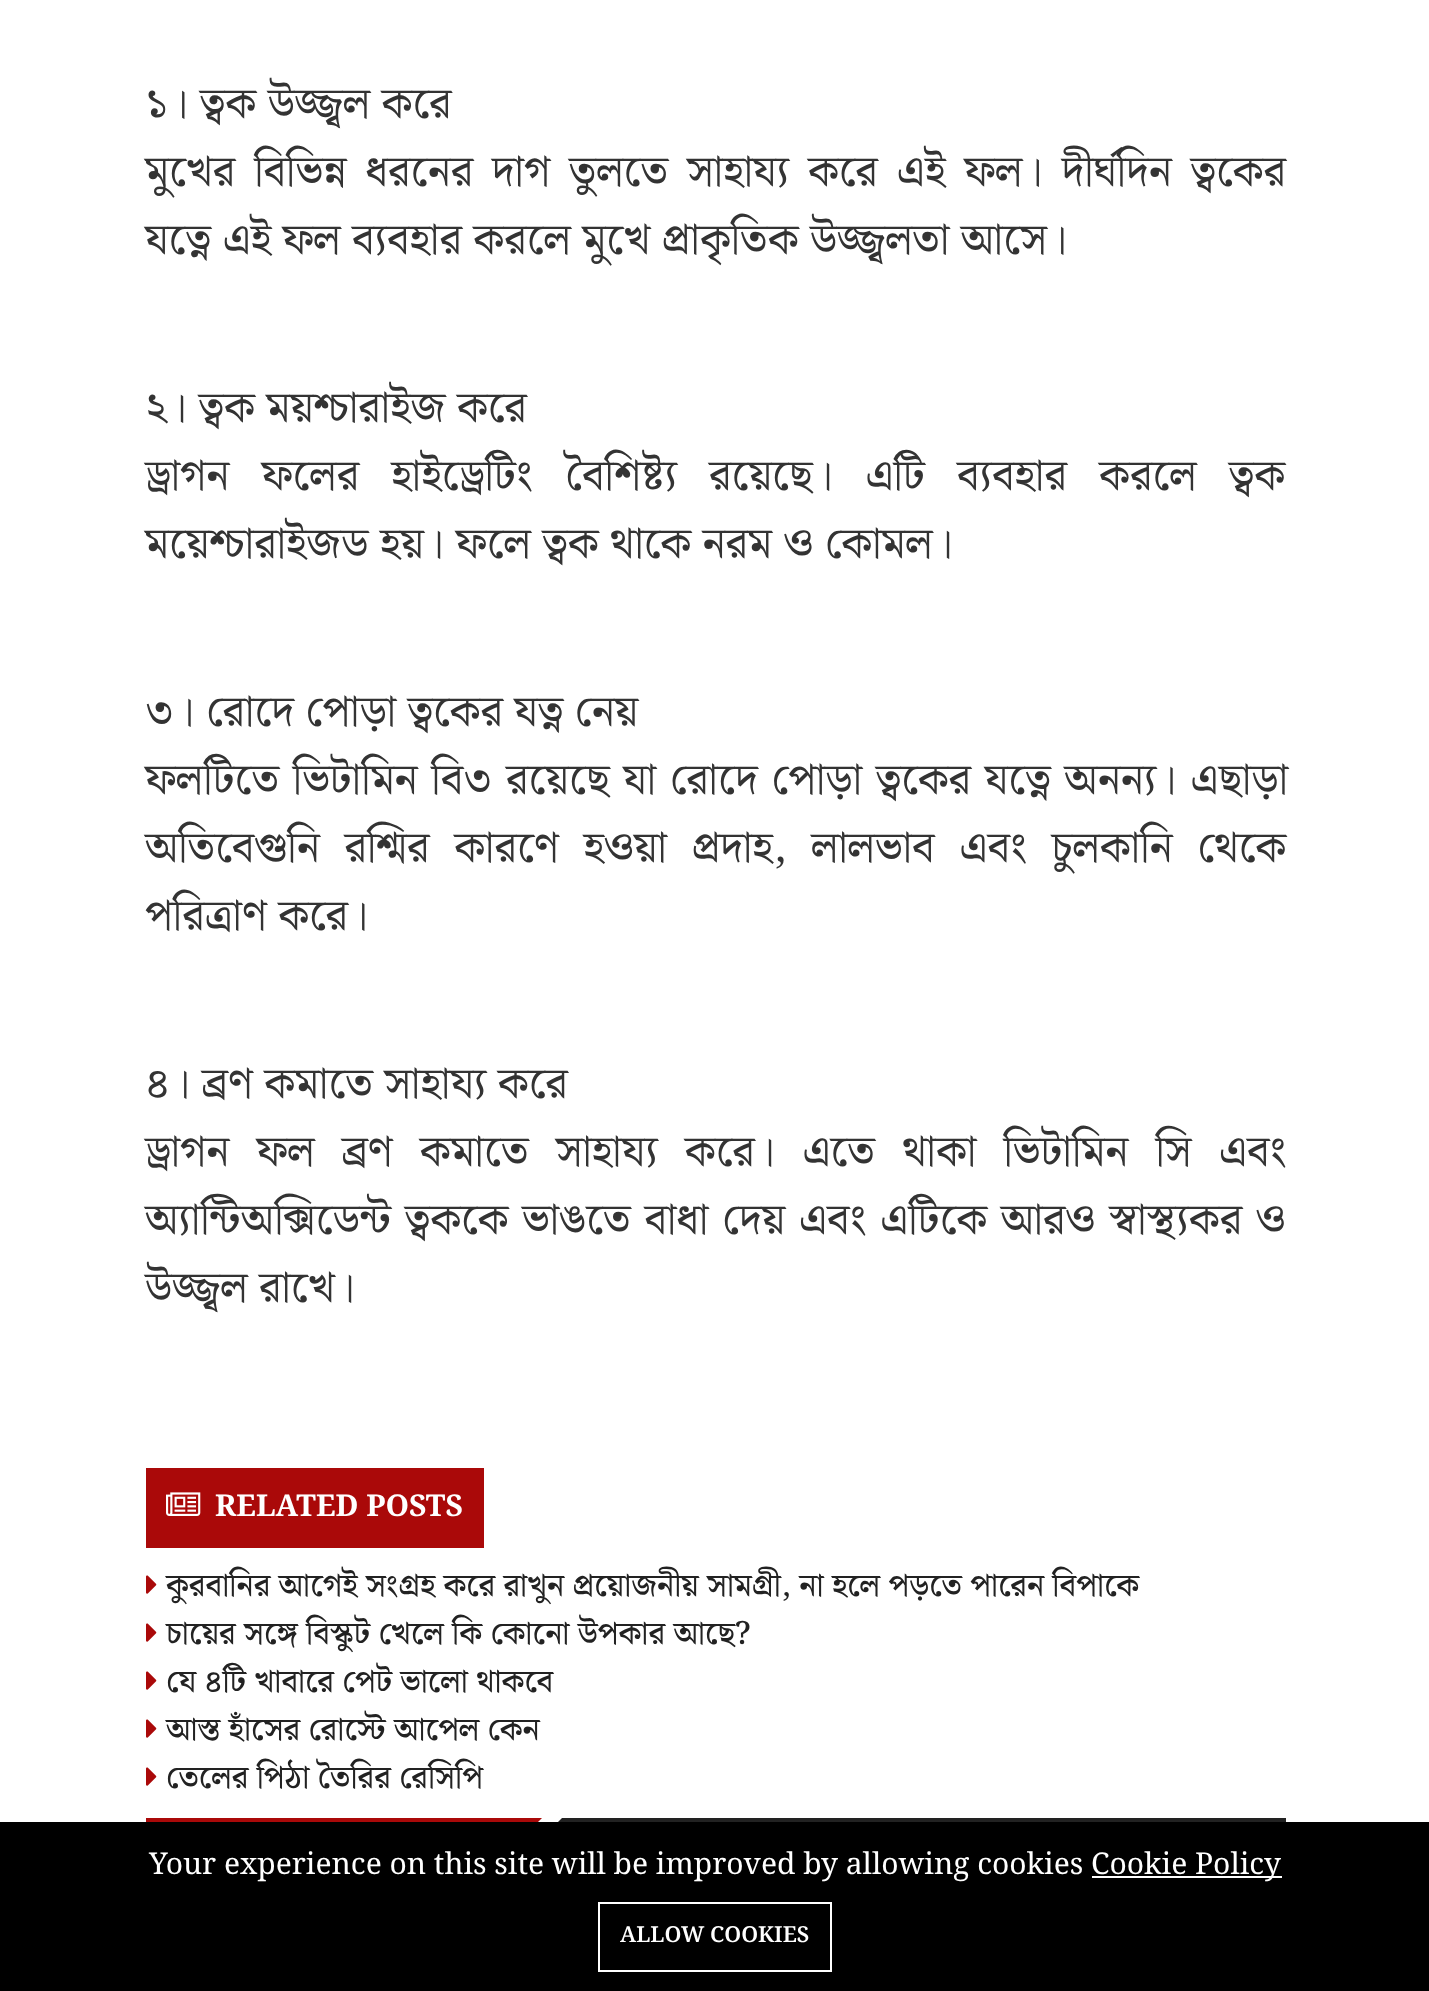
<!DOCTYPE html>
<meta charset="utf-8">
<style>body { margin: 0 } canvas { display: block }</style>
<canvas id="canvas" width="1429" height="1991"></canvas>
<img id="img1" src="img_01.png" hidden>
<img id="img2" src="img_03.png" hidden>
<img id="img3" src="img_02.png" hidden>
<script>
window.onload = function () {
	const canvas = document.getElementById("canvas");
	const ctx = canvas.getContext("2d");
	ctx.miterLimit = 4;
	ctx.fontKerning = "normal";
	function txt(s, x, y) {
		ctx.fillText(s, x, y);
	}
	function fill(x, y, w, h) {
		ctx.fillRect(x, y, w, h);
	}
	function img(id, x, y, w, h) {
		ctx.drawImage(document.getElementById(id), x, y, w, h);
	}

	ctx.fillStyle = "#FFFFFF";
	fill(0, 0, 1429, 1991);
	ctx.fillStyle = "#AA0909";
	fill(146, 1468, 338, 80);
	img("img1", 166, 1492, 35, 24);
	img("img2", 146, 1623, 11, 19);
	img("img2", 146, 1671, 11, 19);
	img("img2", 146, 1719, 11, 19);
	img("img2", 146, 1767, 11, 19);
	ctx.fillStyle = "#222222";
	fill(562, 1818, 724, 4);
	ctx.fillStyle = "#AA0909";
	fill(146, 1818, 316, 4);
	ctx.fillStyle = "#222222";
	ctx.beginPath();
	ctx.moveTo(562, 1818);
	ctx.lineTo(562, 1898);
	ctx.lineTo(482, 1898);
	ctx.closePath();
	ctx.fill();
	ctx.fillStyle = "#AA0909";
	ctx.beginPath();
	ctx.moveTo(462, 1898);
	ctx.lineTo(462, 1818);
	ctx.lineTo(542, 1818);
	ctx.closePath();
	ctx.fill();
	ctx.fillStyle = "#000000";
	fill(0, 1822, 1429, 169);
	ctx.fillStyle = "#FFFFFF";
	fill(1092, 1876, 190, 2);
	ctx.strokeStyle = "#FFFFFF";
	ctx.lineWidth = 2;
	ctx.strokeRect(599, 1903, 232, 68);
	ctx.font = "44px Noto Serif Bengali";
	ctx.fillStyle = "#333333";
	txt("১। ত্বক উজ্জ্বল করে", 145, 118);
	ctx.wordSpacing = "7.5px";
	txt("মুখের বিভিন্ন ধরনের দাগ তুলতে সাহায্য করে এই ফল। দীর্ঘদিন ত্বকের", 145, 186);
	ctx.wordSpacing = "0px";
	txt("যত্নে এই ফল ব্যবহার করলে মুখে প্রাকৃতিক উজ্জ্বলতা আসে।", 145, 254);
	txt("২। ত্বক ময়শ্চারাইজ করে", 145, 422);
	ctx.wordSpacing = "20.75px";
	txt("ড্রাগন ফলের হাইড্রেটিং বৈশিষ্ট্য রয়েছে। এটি ব্যবহার করলে ত্বক", 145, 490);
	ctx.wordSpacing = "0px";
	txt("ময়েশ্চারাইজড হয়। ফলে ত্বক থাকে নরম ও কোমল।", 145, 558);
	txt("৩। রোদে পোড়া ত্বকের যত্ন নেয়", 145, 726);
	ctx.wordSpacing = "2.25px";
	txt("ফলটিতে ভিটামিন বি৩ রয়েছে যা রোদে পোড়া ত্বকের যত্নে অনন্য। এছাড়া", 145, 794);
	ctx.wordSpacing = "13.25px";
	txt("অতিবেগুনি রশ্মির কারণে হওয়া প্রদাহ, লালভাব এবং চুলকানি থেকে", 145, 862);
	ctx.wordSpacing = "0px";
	txt("পরিত্রাণ করে।", 145, 930);
	txt("৪। ব্রণ কমাতে সাহায্য করে", 145, 1098);
	ctx.wordSpacing = "15.75px";
	txt("ড্রাগন ফল ব্রণ কমাতে সাহায্য করে। এতে থাকা ভিটামিন সি এবং", 145, 1166);
	ctx.wordSpacing = "2.25px";
	txt("অ্যান্টিঅক্সিডেন্ট ত্বককে ভাঙতে বাধা দেয় এবং এটিকে আরও স্বাস্থ্যকর ও", 145, 1234);
	ctx.wordSpacing = "0px";
	txt("উজ্জ্বল রাখে।", 145, 1302);
	ctx.font = "bold 30px Noto Serif Bengali";
	ctx.fillStyle = "#FFFFFF";
	txt("RELATED POSTS", 215, 1516);
	ctx.font = "500 32px Noto Serif Bengali";
	ctx.fillStyle = "#222222";
	txt("কুরবানির আগেই সংগ্রহ করে রাখুন প্রয়োজনীয় সামগ্রী, না হলে পড়তে পারেন বিপাকে", 166, 1596);
	img("img3", 146, 1575, 11, 19);
	txt("চায়ের সঙ্গে বিস্কুট খেলে কি কোনো উপকার আছে?", 166, 1644);
	txt("যে ৪টি খাবারে পেট ভালো থাকবে", 166, 1692);
	txt("আস্ত হাঁসের রোস্টে আপেল কেন", 166, 1740);
	txt("তেলের পিঠা তৈরির রেসিপি", 166, 1788);
	ctx.font = "30px Noto Serif Bengali";
	ctx.fillStyle = "#FFFFFF";
	txt("Your experience on this site will be improved by allowing cookies", 149, 1874);
	txt("Cookie Policy", 1091, 1874);
	ctx.font = "600 22px Noto Serif Bengali";
	txt("ALLOW COOKIES", 620, 1942);
};
</script>
